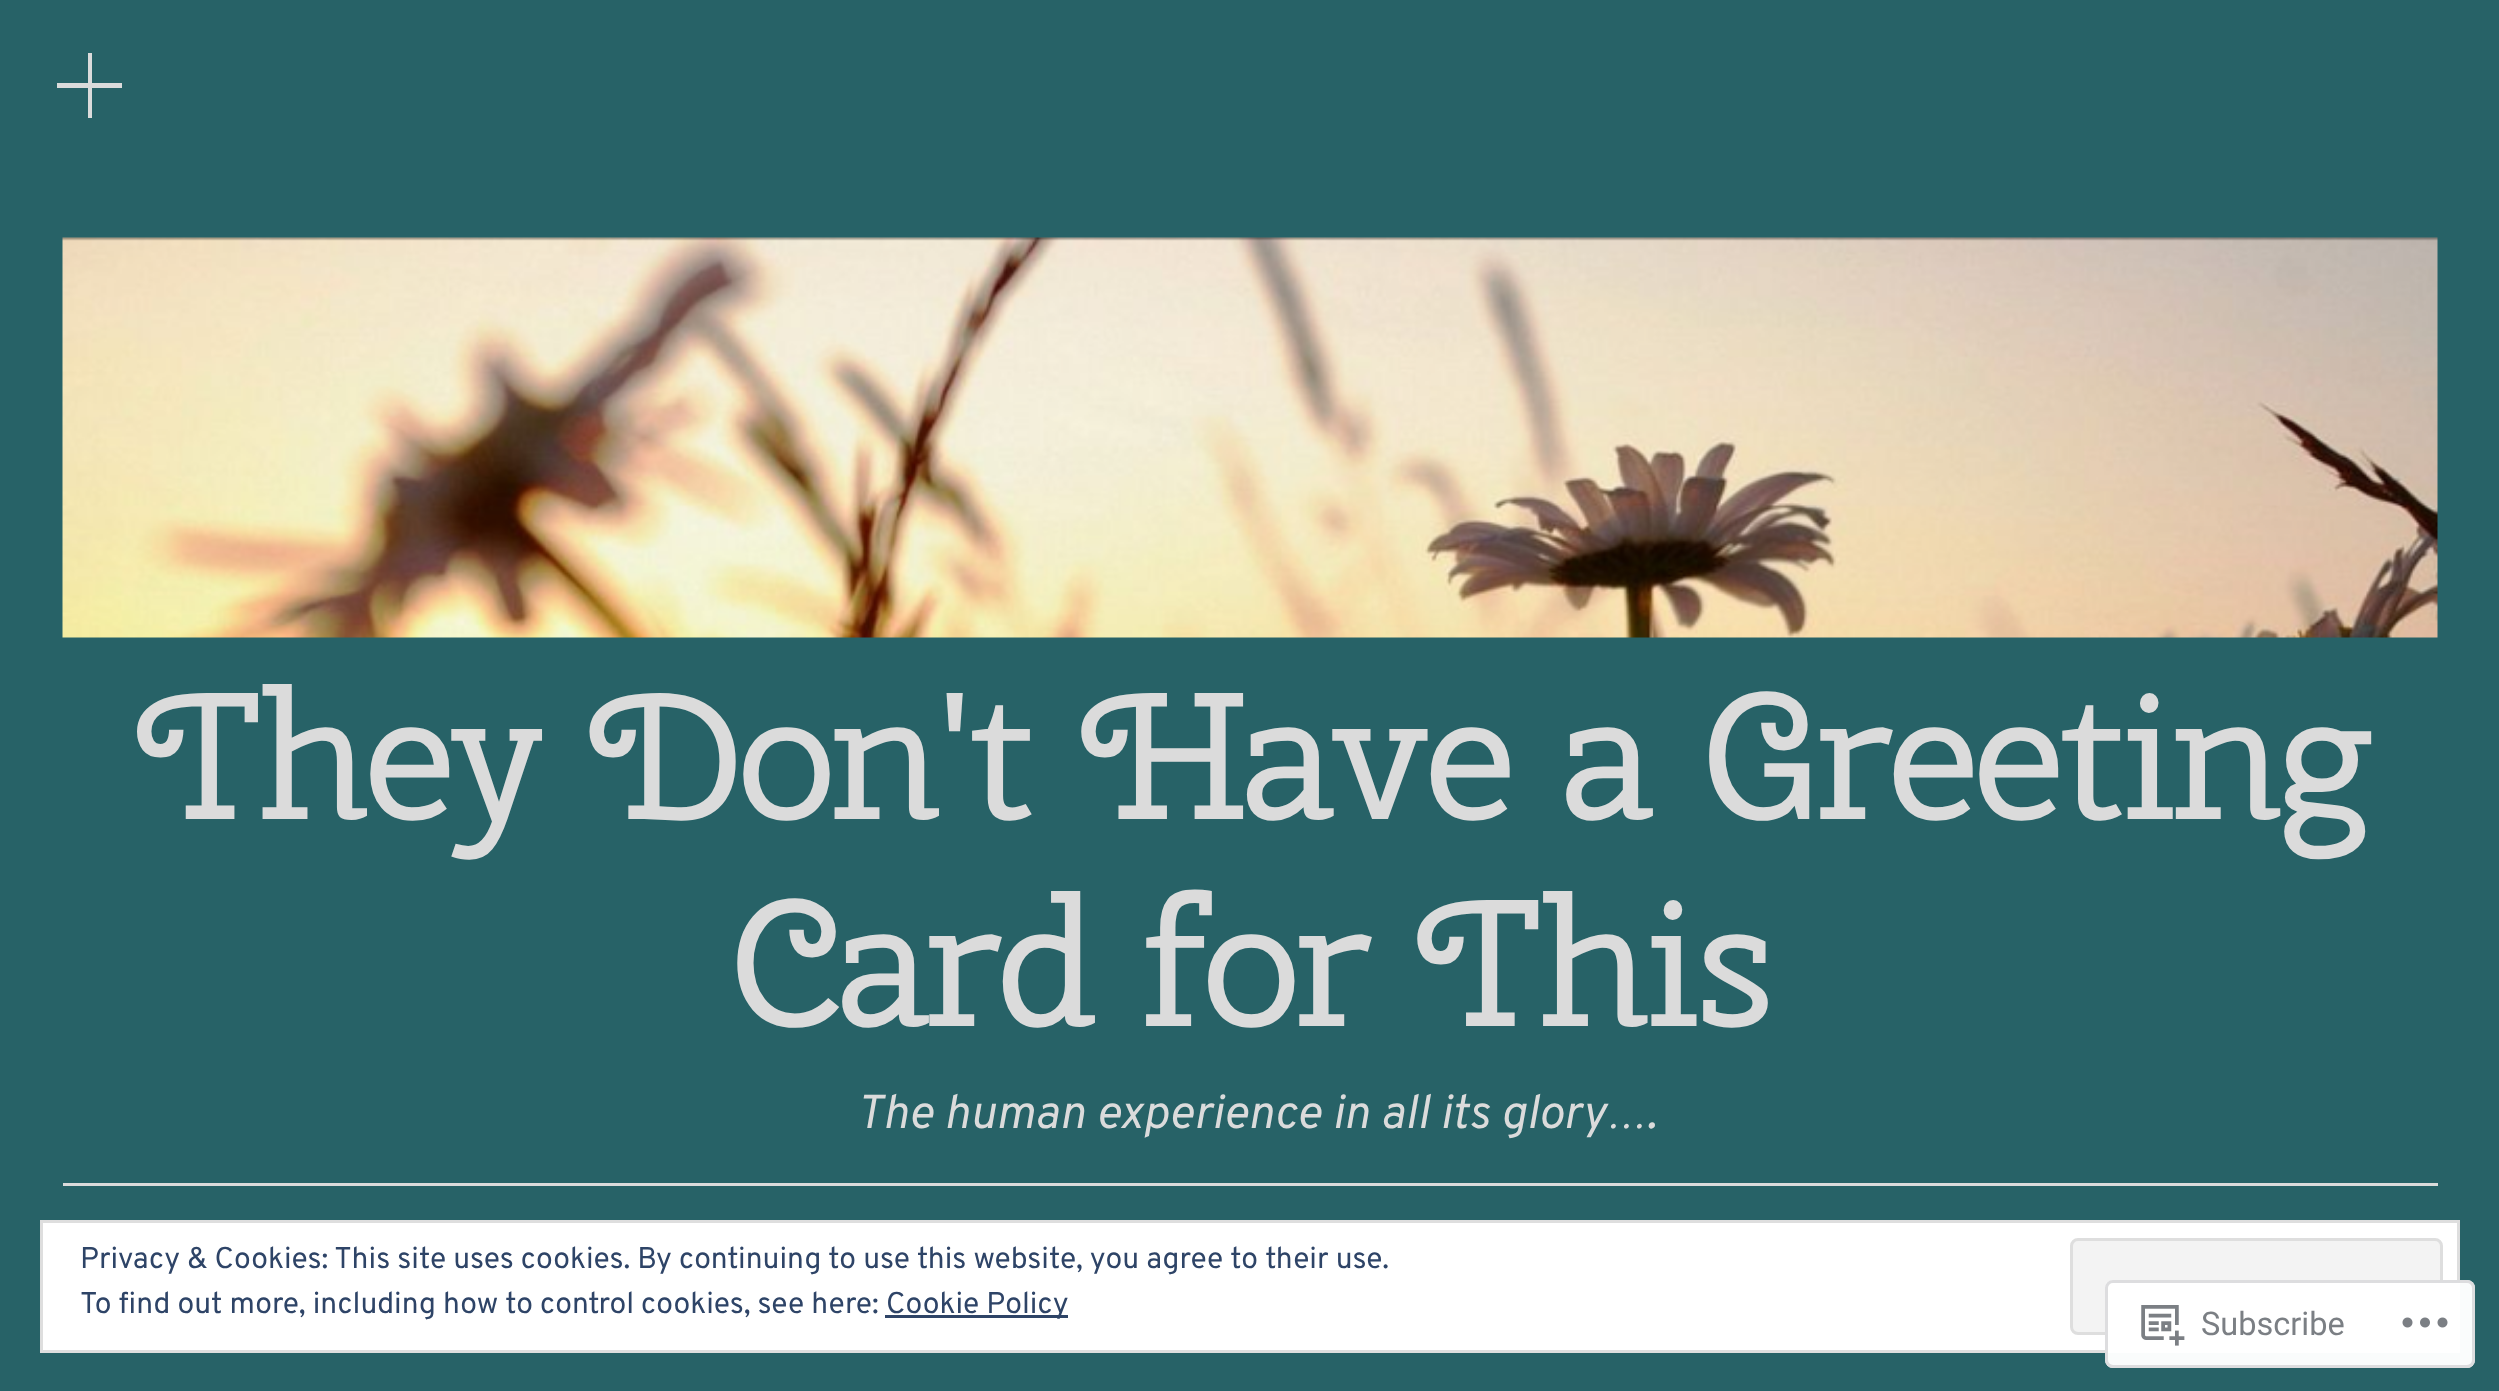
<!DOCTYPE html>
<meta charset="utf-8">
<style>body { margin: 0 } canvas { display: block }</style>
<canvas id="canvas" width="2499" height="1391"></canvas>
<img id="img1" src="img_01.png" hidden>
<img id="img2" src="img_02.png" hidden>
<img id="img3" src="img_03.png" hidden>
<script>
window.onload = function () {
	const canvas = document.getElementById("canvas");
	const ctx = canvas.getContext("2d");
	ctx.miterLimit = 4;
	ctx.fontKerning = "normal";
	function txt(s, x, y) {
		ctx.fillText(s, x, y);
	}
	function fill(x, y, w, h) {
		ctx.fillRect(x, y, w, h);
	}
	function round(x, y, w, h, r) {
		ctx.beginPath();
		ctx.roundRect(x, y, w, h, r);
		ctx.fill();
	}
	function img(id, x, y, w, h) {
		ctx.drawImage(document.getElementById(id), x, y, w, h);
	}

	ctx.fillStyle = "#276267";
	fill(0, 0, 2499, 1391);
	ctx.fillStyle = "#DBDBDB";
	ctx.beginPath();
	ctx.moveTo(122, 88);
	ctx.lineTo(92, 88);
	ctx.lineTo(92, 118);
	ctx.lineTo(88, 118);
	ctx.lineTo(88, 88);
	ctx.lineTo(57, 88);
	ctx.lineTo(57, 83);
	ctx.lineTo(88, 83);
	ctx.lineTo(88, 53);
	ctx.lineTo(92, 53);
	ctx.lineTo(92, 83);
	ctx.lineTo(122, 83);
	ctx.closePath();
	ctx.fill();
	fill(63, 1183, 2375, 3);
	img("img1", 62, 237, 2376, 401);
	ctx.fillStyle = "#FFFFFF";
	ctx.beginPath();
	ctx.rect(41.5, 1221.5, 2417, 130);
	ctx.fill();
	ctx.strokeStyle = "#DEDEDE";
	ctx.lineWidth = 3;
	ctx.stroke();
	ctx.fillStyle = "#F3F3F3";
	ctx.beginPath();
	ctx.roundRect(2071.5, 1239.5, 370, 94, 6.5);
	ctx.fill();
	ctx.stroke();
	ctx.fillStyle = "#2E4467";
	fill(885, 1315, 183, 3);
	ctx.fillStyle = "rgba(255, 255, 255, 0.98)";
	round(2105, 1280, 370, 88, 8);
	ctx.beginPath();
	ctx.roundRect(2106.5, 1281.5, 367, 85, 6.5);
	ctx.strokeStyle = "rgba(220, 220, 222, 0.98)";
	ctx.stroke();
	img("img2", 2141, 1305, 44, 41);
	img("img3", 2402, 1317, 46, 11);
	ctx.letterSpacing = "-5px";
	ctx.font = "180px Cherry Swash";
	ctx.fillStyle = "#DBDBDB";
	txt("They Don't Have a Greeting", 137, 819);
	txt("Card for This", 731, 1026);
	ctx.letterSpacing = "0px";
	ctx.font = "italic 47.5px Overpass";
	txt("The human experience in all its glory….", 856, 1128);
	ctx.font = "30px Overpass";
	ctx.fillStyle = "#2E4467";
	txt("Privacy & Cookies: This site uses cookies. By continuing to use this website, you agree to their use.", 80, 1268);
	txt("To find out more, including how to control cookies, see here:", 80, 1313);
	txt("Cookie Policy", 886, 1313);
	ctx.font = "32.5px Roboto";
	ctx.fillStyle = "#7B7F84";
	txt("Subscribe", 2201, 1335);
};
</script>
